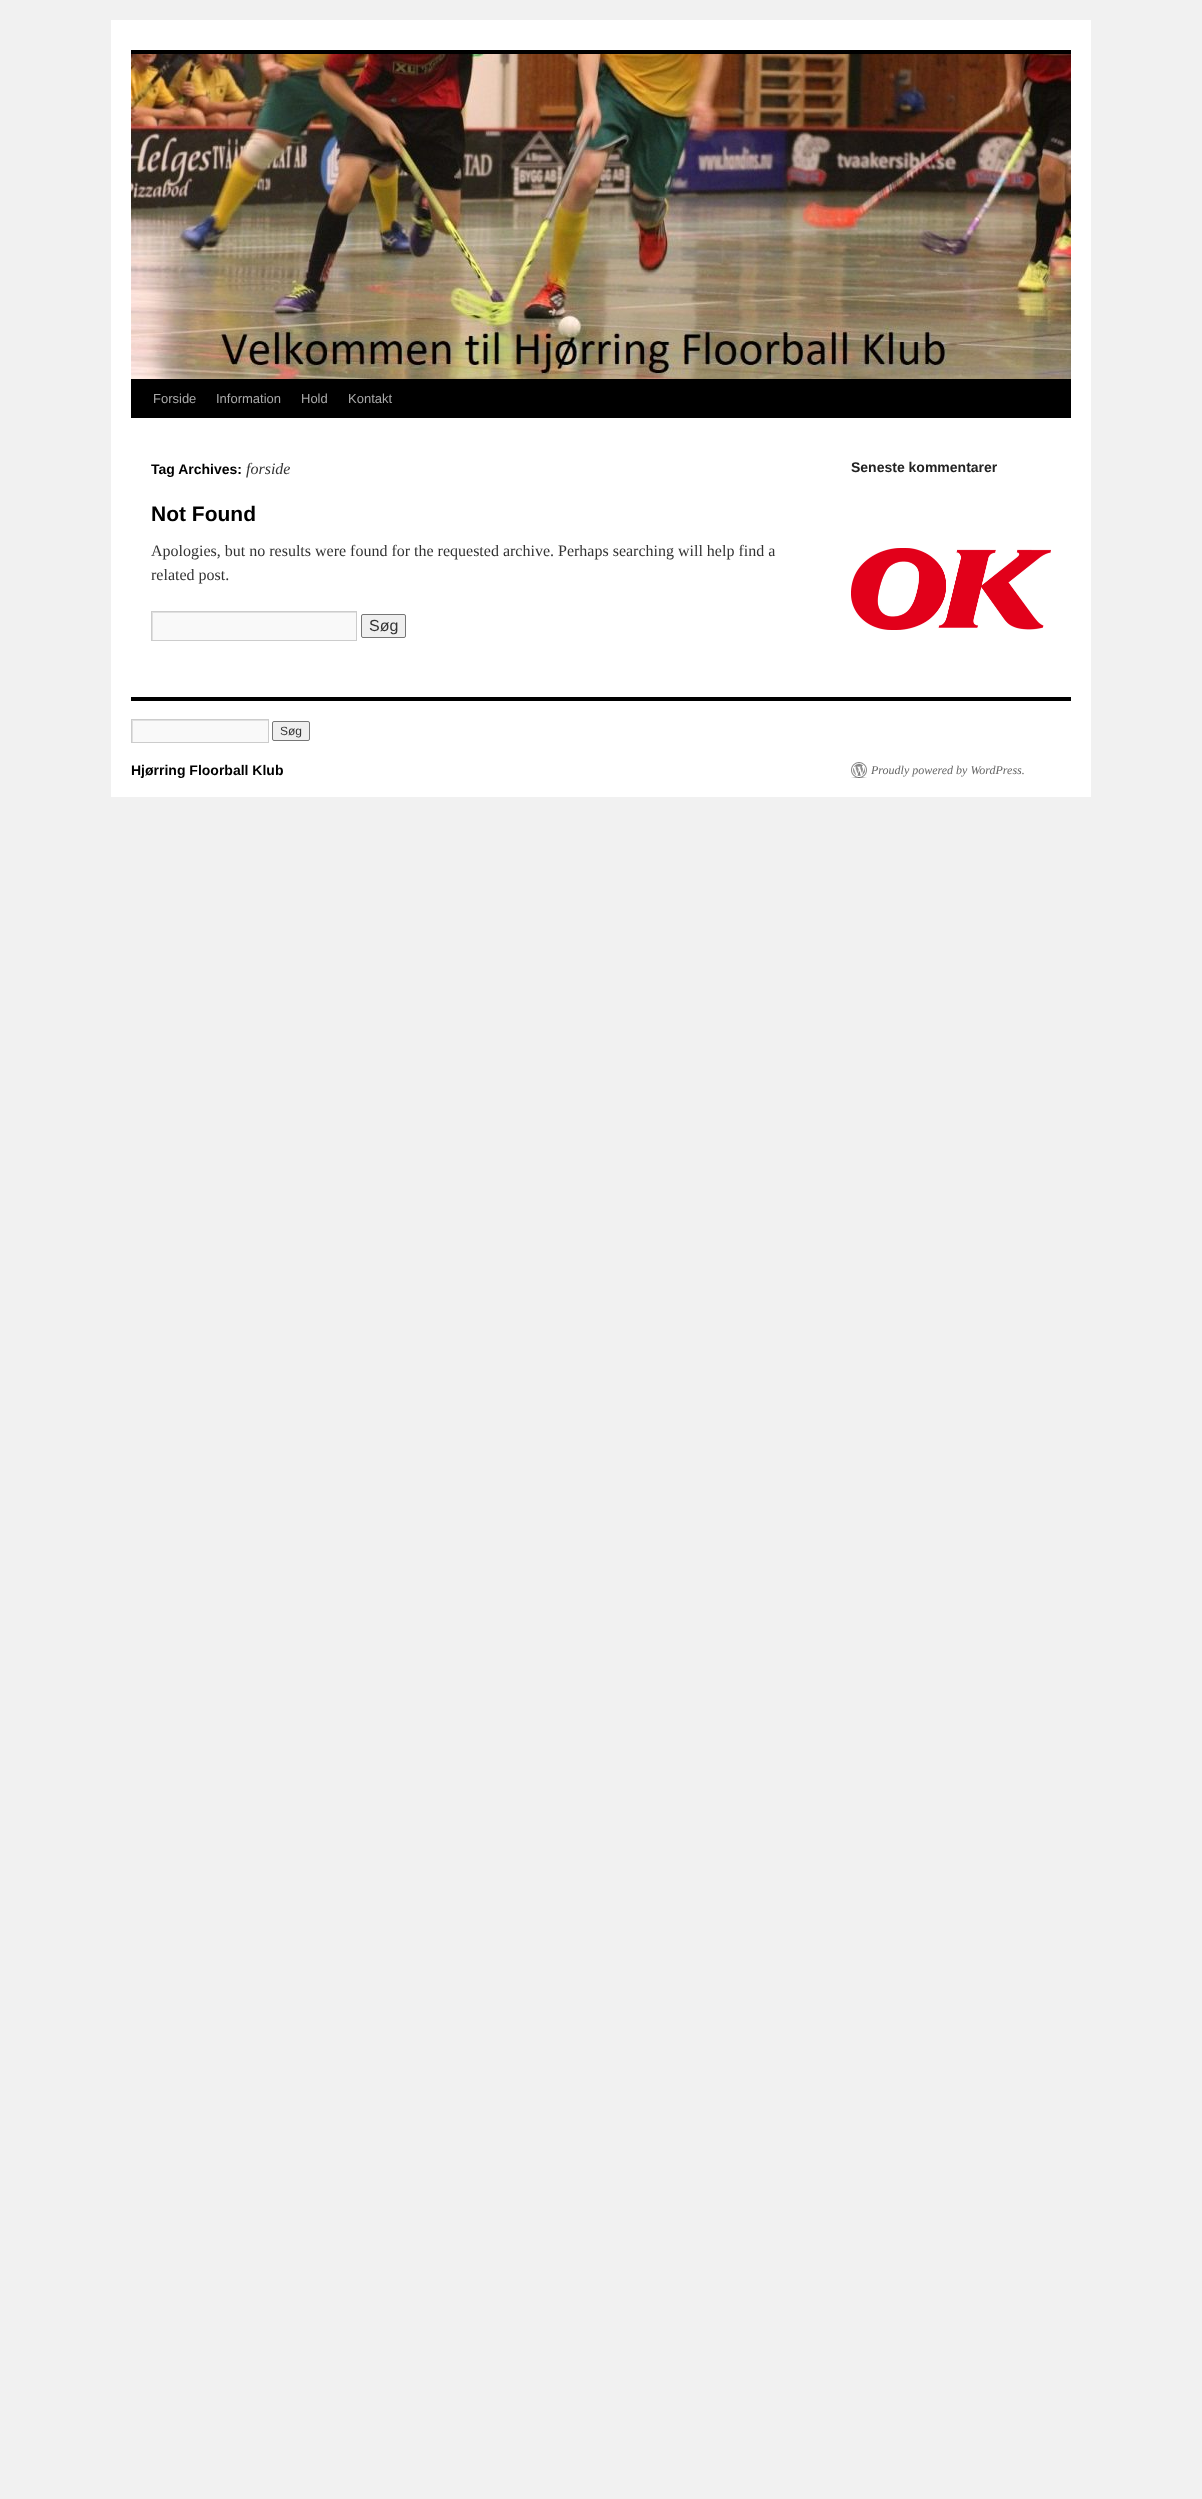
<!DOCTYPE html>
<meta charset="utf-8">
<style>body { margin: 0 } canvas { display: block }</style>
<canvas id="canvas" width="1202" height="2499"></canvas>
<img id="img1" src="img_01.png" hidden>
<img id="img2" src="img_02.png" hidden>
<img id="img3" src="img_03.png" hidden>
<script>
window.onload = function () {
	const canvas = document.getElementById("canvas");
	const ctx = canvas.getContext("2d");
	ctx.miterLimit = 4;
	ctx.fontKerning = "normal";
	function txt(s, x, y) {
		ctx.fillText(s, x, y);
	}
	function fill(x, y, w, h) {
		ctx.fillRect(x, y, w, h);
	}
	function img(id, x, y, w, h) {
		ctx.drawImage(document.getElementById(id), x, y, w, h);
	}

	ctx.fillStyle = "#F1F1F1";
	fill(0, 0, 1202, 2499);
	ctx.fillStyle = "#FFFFFF";
	fill(111, 20, 980, 777);
	ctx.fillStyle = "#000000";
	fill(131, 50, 940, 4);
	fill(131, 379, 940, 39);
	img("img1", 131, 54, 940, 325);
	ctx.fillStyle = "#F9F9F9";
	fill(153, 613, 203, 27);
	ctx.save();
	ctx.beginPath();
	ctx.rect(152, 612, 204, 28);
	ctx.clip();
	ctx.fillStyle = "#E0E0E0";
	ctx.beginPath();
	ctx.moveTo(53, 513);
	ctx.lineTo(455, 513);
	ctx.lineTo(455, 739);
	ctx.lineTo(53, 739);
	ctx.closePath();
	ctx.moveTo(153, 613);
	ctx.lineTo(357, 613);
	ctx.lineTo(357, 641);
	ctx.lineTo(153, 641);
	ctx.closePath();
	ctx.fill("evenodd");
	ctx.restore();
	ctx.strokeStyle = "#CCCCCC";
	ctx.strokeRect(151.5, 611.5, 205, 29);
	ctx.fillStyle = "#EFEFEF";
	ctx.beginPath();
	ctx.roundRect(361.5, 614.5, 44, 23, 1.5);
	ctx.fill();
	ctx.strokeStyle = "#767676";
	ctx.stroke();
	img("img2", 851, 548, 200, 82);
	ctx.fillStyle = "#000000";
	fill(131, 697, 940, 4);
	ctx.fillStyle = "#F9F9F9";
	fill(133, 721, 135, 21);
	ctx.save();
	ctx.beginPath();
	ctx.rect(132, 720, 136, 22);
	ctx.clip();
	ctx.fillStyle = "#E0E0E0";
	ctx.beginPath();
	ctx.moveTo(33, 621);
	ctx.lineTo(367, 621);
	ctx.lineTo(367, 841);
	ctx.lineTo(33, 841);
	ctx.closePath();
	ctx.moveTo(133, 721);
	ctx.lineTo(269, 721);
	ctx.lineTo(269, 743);
	ctx.lineTo(133, 743);
	ctx.closePath();
	ctx.fill("evenodd");
	ctx.restore();
	ctx.strokeStyle = "#CCCCCC";
	ctx.strokeRect(131.5, 719.5, 137, 23);
	ctx.fillStyle = "#EFEFEF";
	ctx.beginPath();
	ctx.roundRect(272.5, 721.5, 37, 19, 1.5);
	ctx.fill();
	ctx.strokeStyle = "#767676";
	ctx.stroke();
	img("img3", 851, 762, 16, 16);
	ctx.font = "13px Liberation Sans";
	ctx.fillStyle = "#AAAAAA";
	txt("Forside", 153, 403);
	txt("Information", 216, 403);
	txt("Hold", 301, 403);
	txt("Kontakt", 348, 403);
	ctx.font = "bold 14px Liberation Sans";
	ctx.fillStyle = "#000000";
	txt("Tag Archives:", 151, 474);
	ctx.font = "italic 16px Liberation Serif";
	ctx.fillStyle = "#333333";
	txt("forside", 246, 474);
	ctx.font = "bold 21px Liberation Sans";
	ctx.fillStyle = "#000000";
	txt("Not Found", 151, 521);
	ctx.font = "16px Liberation Serif";
	ctx.fillStyle = "#333333";
	txt("Apologies, but no results were found for the requested archive. Perhaps searching will help find a", 151, 556);
	txt("related post.", 151, 580);
	ctx.font = "16px Liberation Sans";
	txt("Søg", 369, 631);
	ctx.font = "bold 14px Liberation Sans";
	ctx.fillStyle = "#222222";
	txt("Seneste kommentarer", 851, 472);
	ctx.font = "12px Liberation Sans";
	ctx.fillStyle = "#333333";
	txt("Søg", 280, 735);
	ctx.font = "bold 14px Liberation Sans";
	ctx.fillStyle = "#000000";
	txt("Hjørring Floorball Klub", 131, 775);
	ctx.font = "italic 12px Liberation Serif";
	ctx.fillStyle = "#666666";
	txt("Proudly powered by WordPress.", 871, 774);
};
</script>
